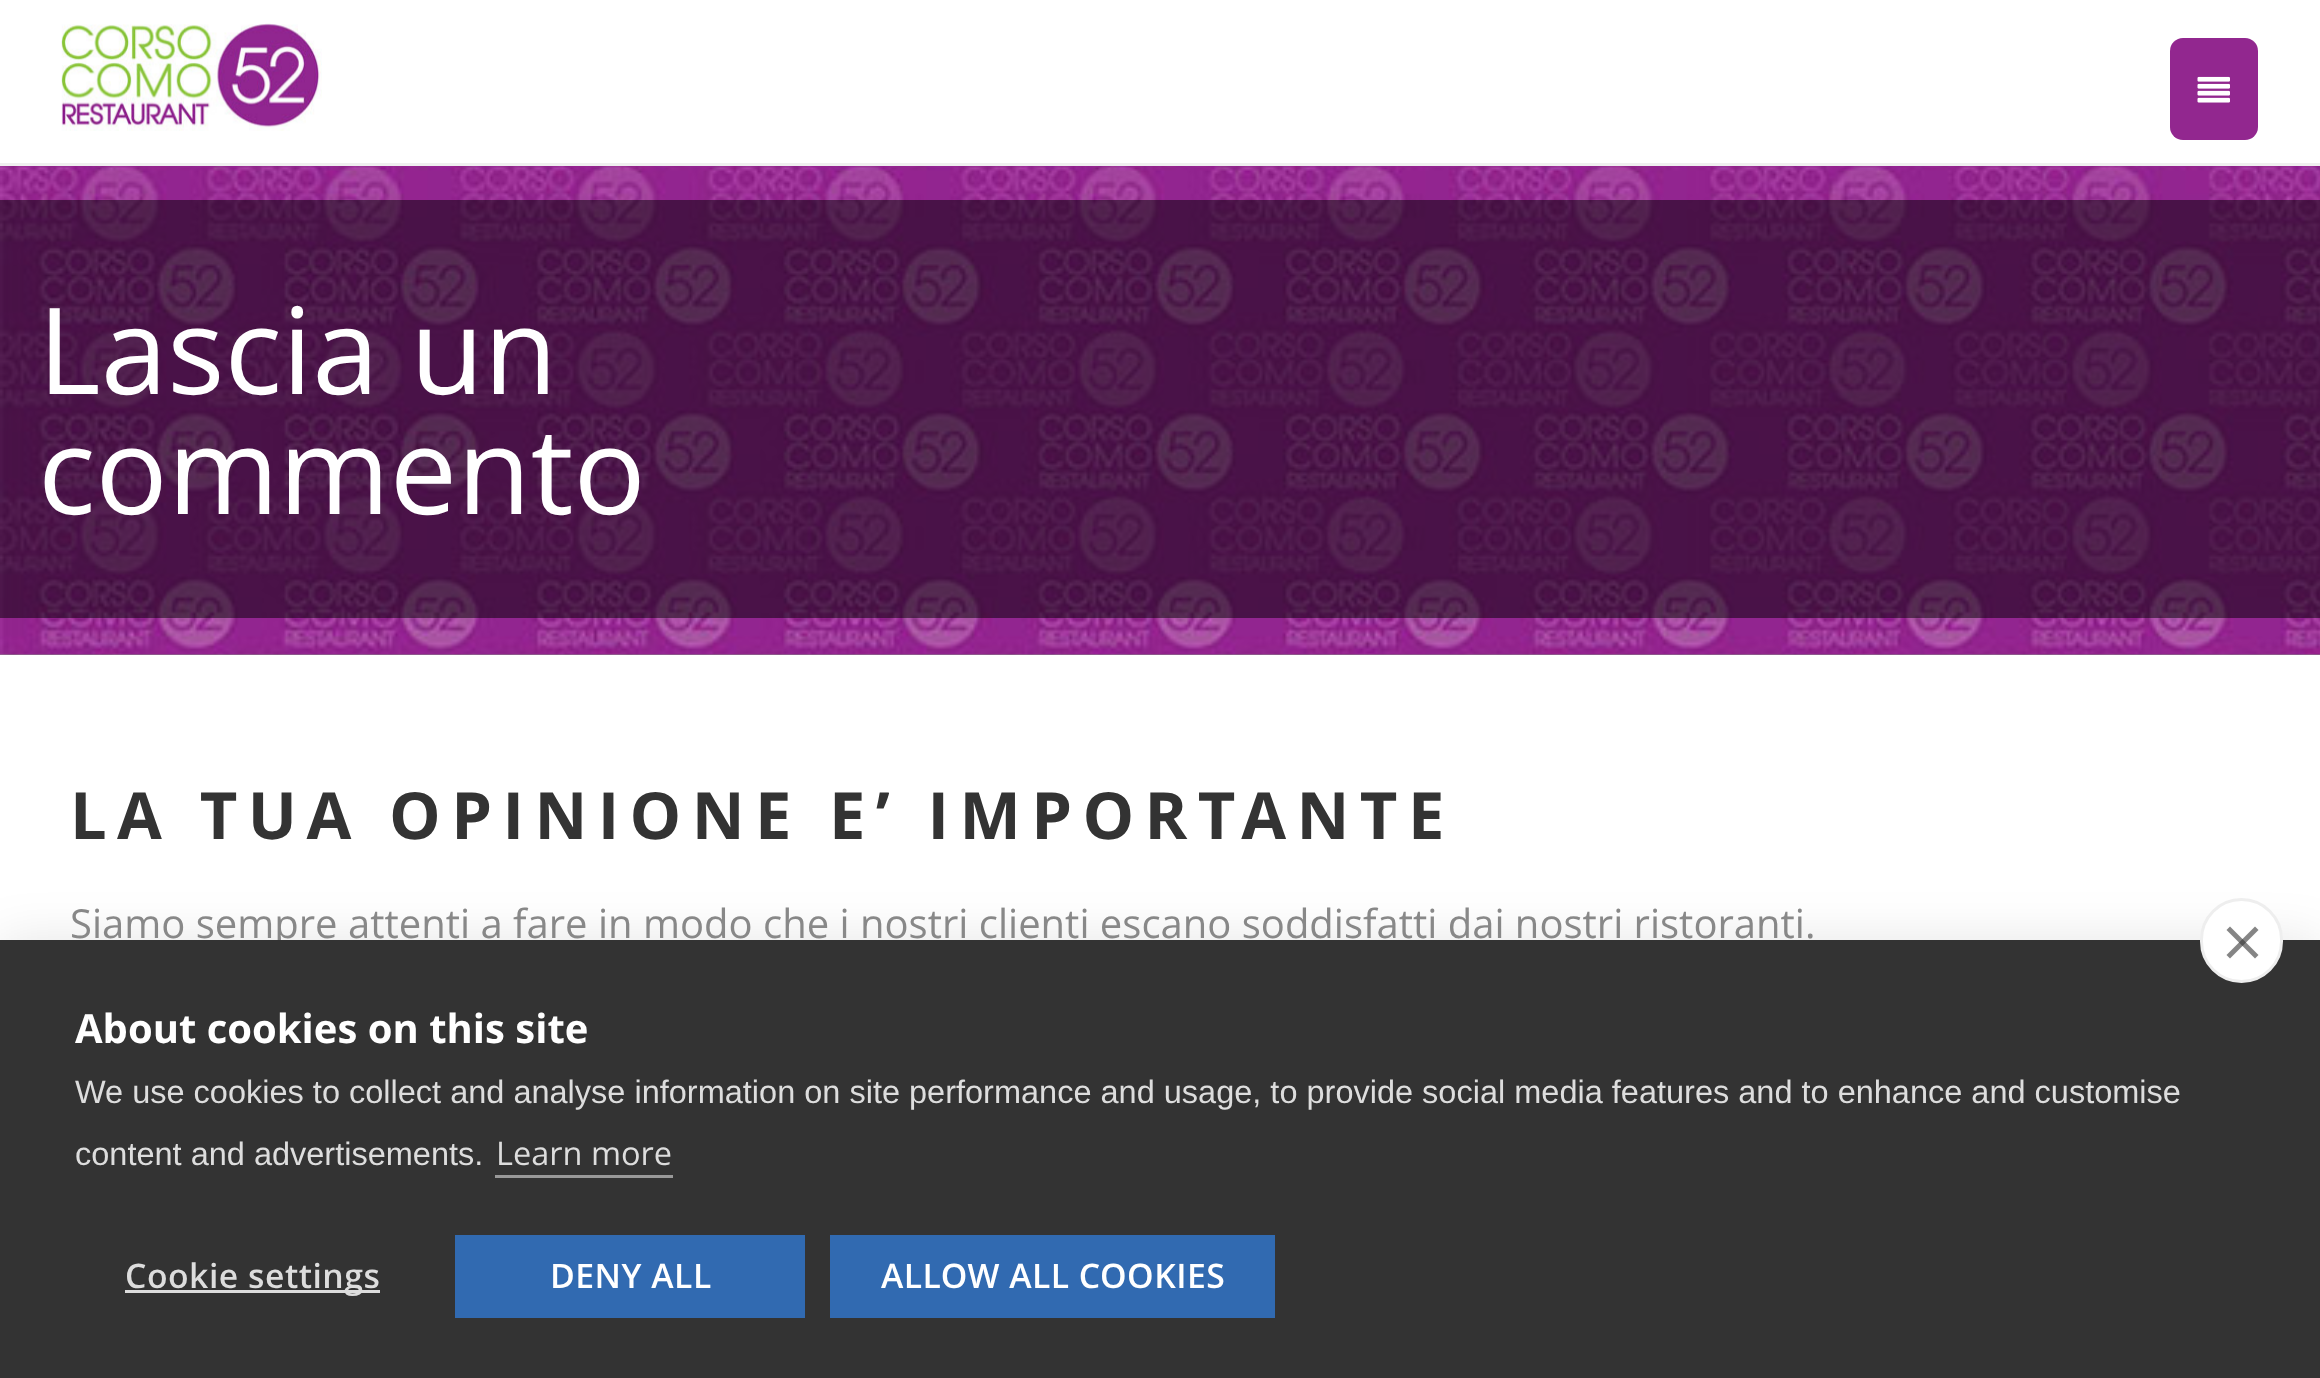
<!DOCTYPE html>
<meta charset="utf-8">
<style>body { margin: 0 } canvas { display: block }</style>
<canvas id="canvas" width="2320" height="1378"></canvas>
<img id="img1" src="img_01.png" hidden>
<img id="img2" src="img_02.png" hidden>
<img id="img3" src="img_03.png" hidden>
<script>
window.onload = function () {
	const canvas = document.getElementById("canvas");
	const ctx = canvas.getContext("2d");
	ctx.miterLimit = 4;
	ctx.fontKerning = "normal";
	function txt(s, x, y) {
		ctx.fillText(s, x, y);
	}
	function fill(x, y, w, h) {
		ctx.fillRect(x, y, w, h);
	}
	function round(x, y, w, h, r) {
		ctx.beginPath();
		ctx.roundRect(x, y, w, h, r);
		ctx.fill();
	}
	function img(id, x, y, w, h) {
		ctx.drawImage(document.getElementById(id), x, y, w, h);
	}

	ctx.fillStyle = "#FFFFFF";
	fill(0, 0, 2320, 1378);
	img("img1", 61, 23, 261, 108);
	ctx.fillStyle = "#92278F";
	round(2170, 38, 88, 102, 13);
	img("img2", 2197, 76, 33, 27);
	ctx.fillStyle = "#EFEFEF";
	fill(0, 163, 2320, 3);
	ctx.fillStyle = "#888888";
	fill(0, 654, 2320, 1);
	img("img3", 0, 166, 2320, 489);
	ctx.fillStyle = "rgba(0, 0, 0, 0.5)";
	fill(0, 200, 2320, 418);
	ctx.fillStyle = "rgba(0, 0, 0, 0.1)";
	ctx.filter = "blur(25px)";
	ctx.beginPath();
	ctx.rect(0, 940, 2320, 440);
	ctx.fill();
	ctx.filter = "none";
	ctx.font = "120px Open Sans";
	ctx.fillStyle = "#FFFFFF";
	txt("Lascia un", 38, 394);
	txt("commento", 38, 514);
	ctx.letterSpacing = "10.4px";
	ctx.font = "bold 65px Open Sans";
	ctx.fillStyle = "#333333";
	txt("LA TUA OPINIONE E’ IMPORTANTE", 70, 839);
	ctx.letterSpacing = "0px";
	ctx.font = "40px Open Sans";
	ctx.fillStyle = "#888888";
	txt("Siamo sempre attenti a fare in modo che i nostri clienti escano soddisfatti dai nostri ristoranti.", 70, 938);
	ctx.fillStyle = "#333333";
	fill(0, 940, 2320, 438);
	ctx.fillStyle = "#FFFFFF";
	ctx.beginPath();
	ctx.roundRect(2201.5, 899.5, 80, 82, 40);
	ctx.fill();
	ctx.strokeStyle = "#EEEEEE";
	ctx.lineWidth = 3;
	ctx.stroke();
	ctx.fillStyle = "#858585";
	ctx.beginPath();
	ctx.moveTo(2226.5, 955);
	ctx.lineTo(2255, 926.5);
	ctx.lineTo(2258.5, 930);
	ctx.lineTo(2230, 958.5);
	ctx.closePath();
	ctx.fill();
	ctx.fillStyle = "rgba(51, 51, 51, 0.6)";
	ctx.beginPath();
	ctx.moveTo(2230, 926.5);
	ctx.lineTo(2258.5, 955);
	ctx.lineTo(2255, 958.5);
	ctx.lineTo(2226.5, 930);
	ctx.closePath();
	ctx.fill();
	ctx.font = "bold 40px Open Sans";
	ctx.fillStyle = "#FFFFFF";
	txt("About cookies on this site", 75, 1043);
	ctx.font = "32.5px Liberation Sans";
	ctx.fillStyle = "#DDDDDD";
	txt("We use cookies to collect and analyse information on site performance and usage, to provide social media features and to enhance and customise", 75, 1103);
	txt("content and advertisements.", 75, 1165);
	ctx.font = "32.5px Open Sans";
	txt("Learn more", 496, 1165);
	ctx.fillStyle = "#999999";
	fill(495, 1175, 178, 3);
	ctx.fillStyle = "#DDDDDD";
	fill(125, 1290, 255, 3);
	ctx.letterSpacing = "0.5px";
	ctx.font = "600 33.75px Open Sans";
	txt("Cookie settings", 125, 1288);
	ctx.fillStyle = "#316AB1";
	fill(455, 1235, 350, 83);
	ctx.fillStyle = "#FFFFFF";
	txt("DENY ALL", 550, 1288);
	ctx.fillStyle = "#316AB1";
	fill(830, 1235, 445, 83);
	ctx.fillStyle = "#FFFFFF";
	txt("ALLOW ALL COOKIES", 881, 1288);
};
</script>
